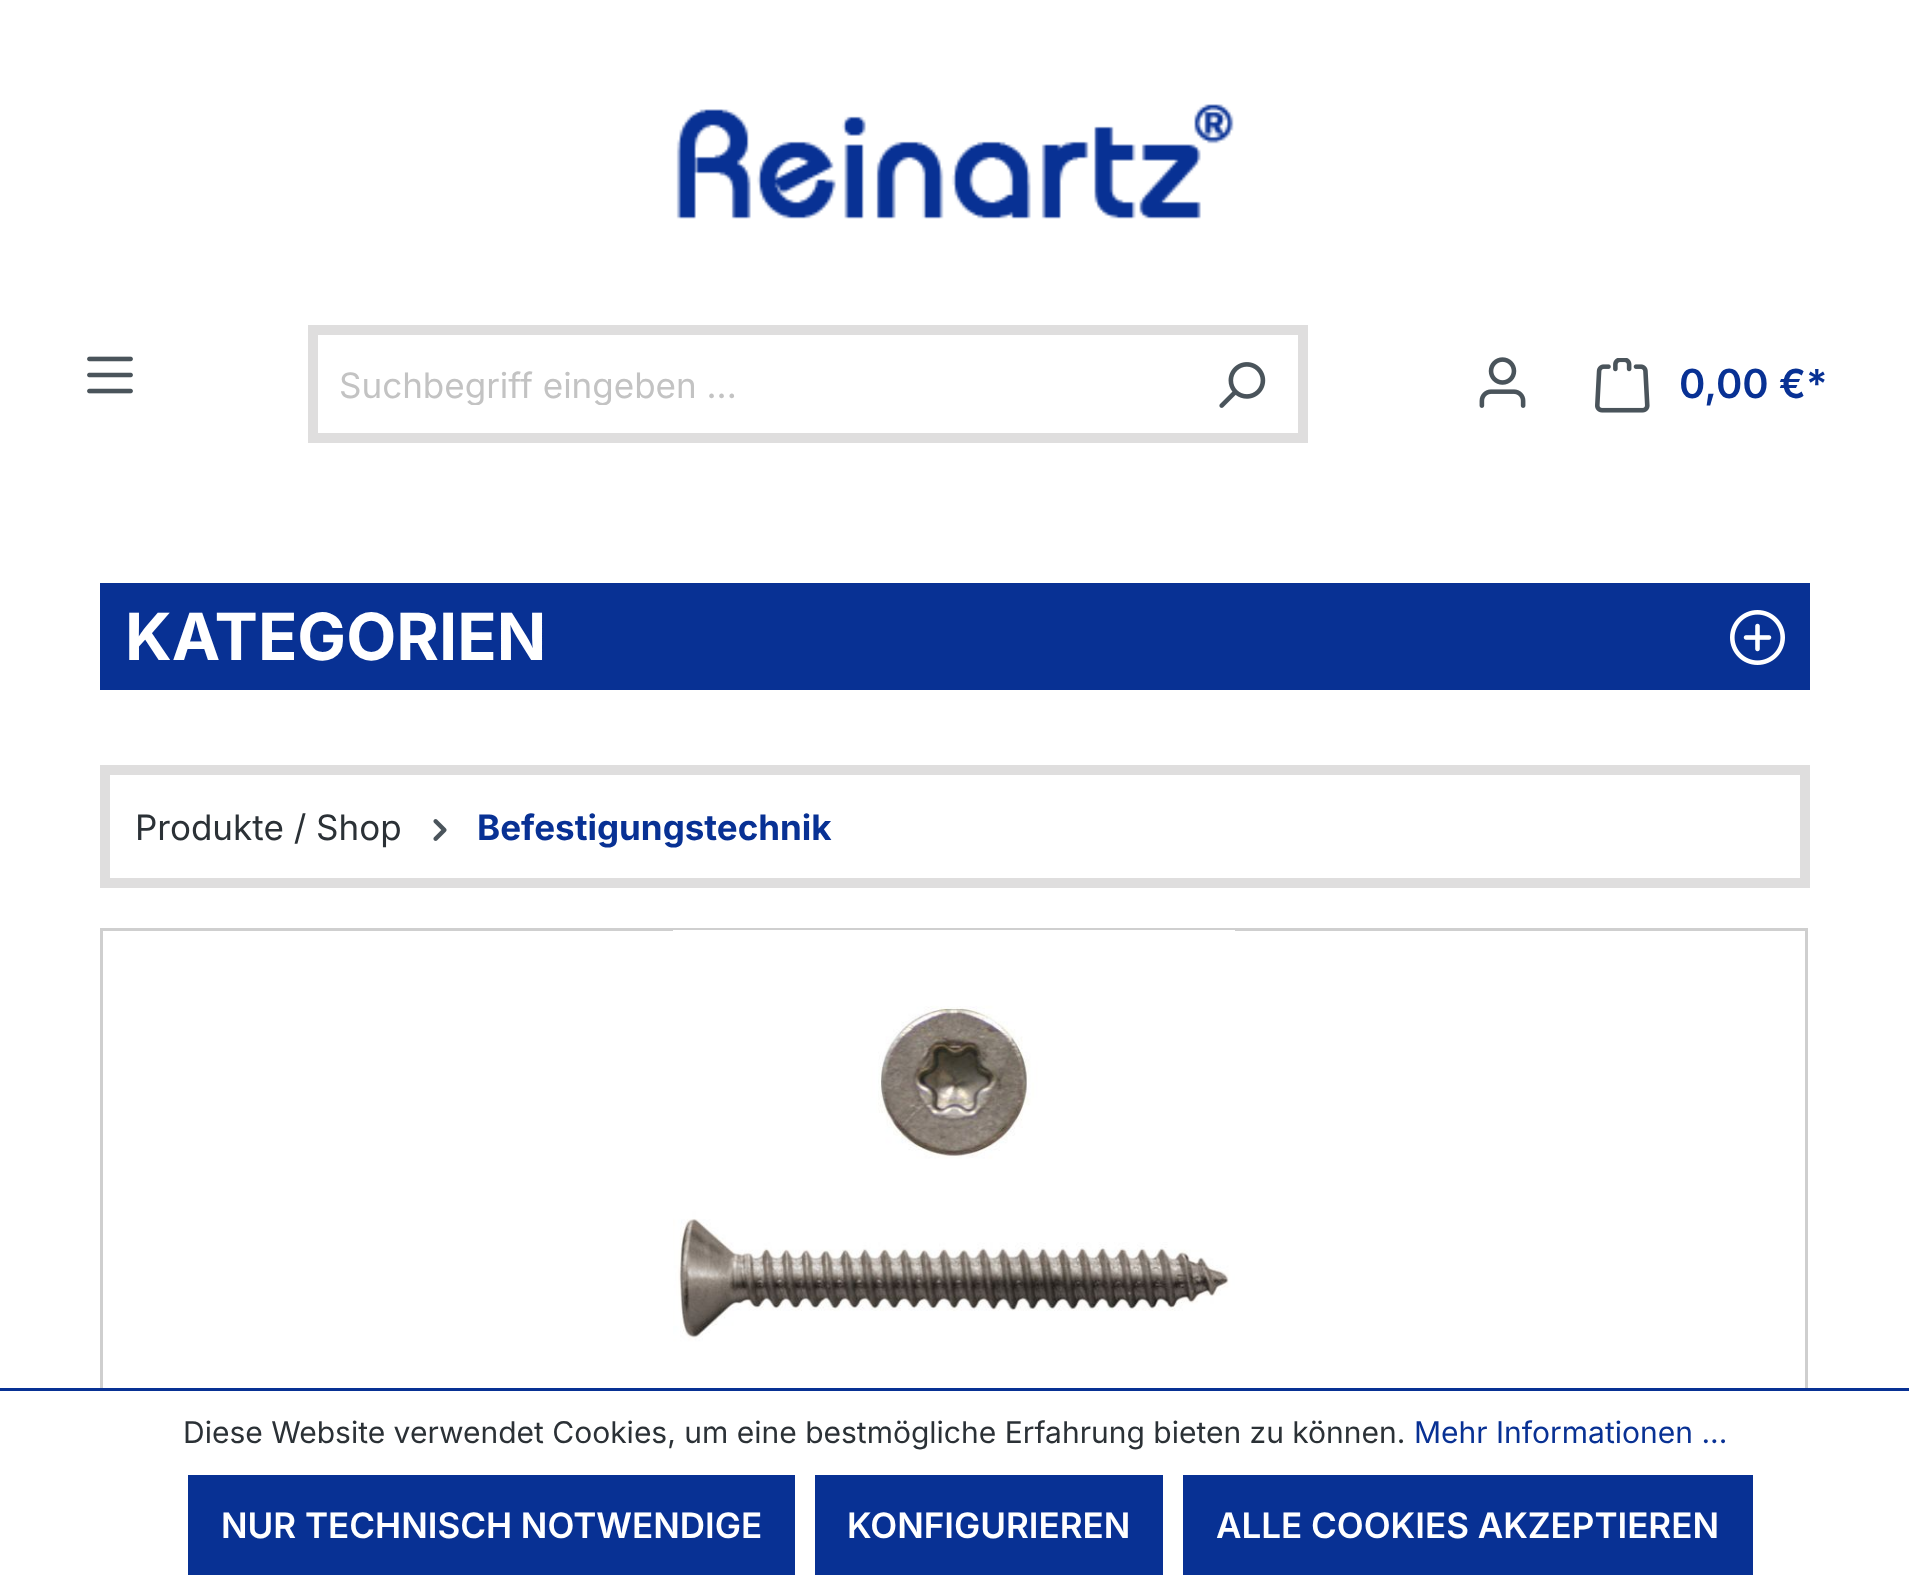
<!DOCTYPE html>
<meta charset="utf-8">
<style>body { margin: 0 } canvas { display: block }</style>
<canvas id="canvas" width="1909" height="1594"></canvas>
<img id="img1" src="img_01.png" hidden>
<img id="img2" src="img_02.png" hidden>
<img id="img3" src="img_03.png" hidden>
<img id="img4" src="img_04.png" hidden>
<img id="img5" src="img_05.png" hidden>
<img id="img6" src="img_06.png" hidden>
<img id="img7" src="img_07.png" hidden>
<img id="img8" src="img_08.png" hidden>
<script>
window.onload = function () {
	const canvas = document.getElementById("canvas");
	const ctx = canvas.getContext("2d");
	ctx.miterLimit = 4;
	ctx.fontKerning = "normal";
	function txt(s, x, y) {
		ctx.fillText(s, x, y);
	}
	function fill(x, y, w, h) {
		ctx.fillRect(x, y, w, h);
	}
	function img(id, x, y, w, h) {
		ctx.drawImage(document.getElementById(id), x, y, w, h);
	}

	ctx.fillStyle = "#FFFFFF";
	fill(0, 0, 1909, 1594);
	img("img1", 676, 104, 558, 115);
	img("img2", 87, 356, 46, 38);
	ctx.strokeStyle = "#DFDEDE";
	ctx.lineWidth = 10;
	ctx.strokeRect(313, 330, 990, 108);
	img("img3", 1219, 362, 47, 46);
	img("img4", 1479, 357, 47, 51);
	img("img5", 1595, 358, 55, 55);
	ctx.fillStyle = "#083194";
	fill(100, 583, 1710, 107);
	img("img6", 1730, 610, 55, 55);
	ctx.strokeRect(105, 770, 1700, 113);
	img("img7", 433, 819, 14, 22);
	ctx.strokeStyle = "#CFCFCF";
	ctx.lineWidth = 3;
	ctx.strokeRect(101.5, 929.5, 1705, 564);
	img("img8", 673, 930, 562, 458);
	ctx.fillStyle = "#FFFFFF";
	fill(100, 1391, 1708, 104);
	ctx.fillStyle = "#083194";
	fill(0, 1388, 1909, 3);
	fill(188, 1475, 607, 100);
	fill(815, 1475, 348, 100);
	fill(1183, 1475, 570, 100);
	ctx.save();
	ctx.beginPath();
	ctx.rect(340, 363, 823, 42);
	ctx.clip();
	ctx.font = "35px Inter";
	ctx.fillStyle = "#C3C3C3";
	txt("Suchbegriff eingeben ...", 339, 398);
	ctx.restore();
	ctx.font = "600 40px Inter";
	txt("0,00 €*", 1679, 398);
	ctx.font = "bold 65px Inter";
	ctx.fillStyle = "#FFFFFF";
	txt("KATEGORIEN", 125, 660);
	ctx.font = "35px Inter";
	ctx.fillStyle = "#2B3136";
	txt("Produkte / Shop", 135, 840);
	ctx.font = "bold 35px Inter";
	ctx.fillStyle = "#083194";
	txt("Befestigungstechnik", 477, 840);
	ctx.font = "30px Inter";
	ctx.fillStyle = "#2B3136";
	txt("Diese Website verwendet Cookies, um eine bestmögliche Erfahrung bieten zu können.", 183, 1443);
	ctx.fillStyle = "#083194";
	txt("Mehr Informationen ...", 1414, 1443);
	ctx.font = "600 35px Inter";
	ctx.fillStyle = "#FFFFFF";
	txt("NUR TECHNISCH NOTWENDIGE", 221, 1538);
	txt("KONFIGURIEREN", 847, 1538);
	txt("ALLE COOKIES AKZEPTIEREN", 1216, 1538);
};
</script>
